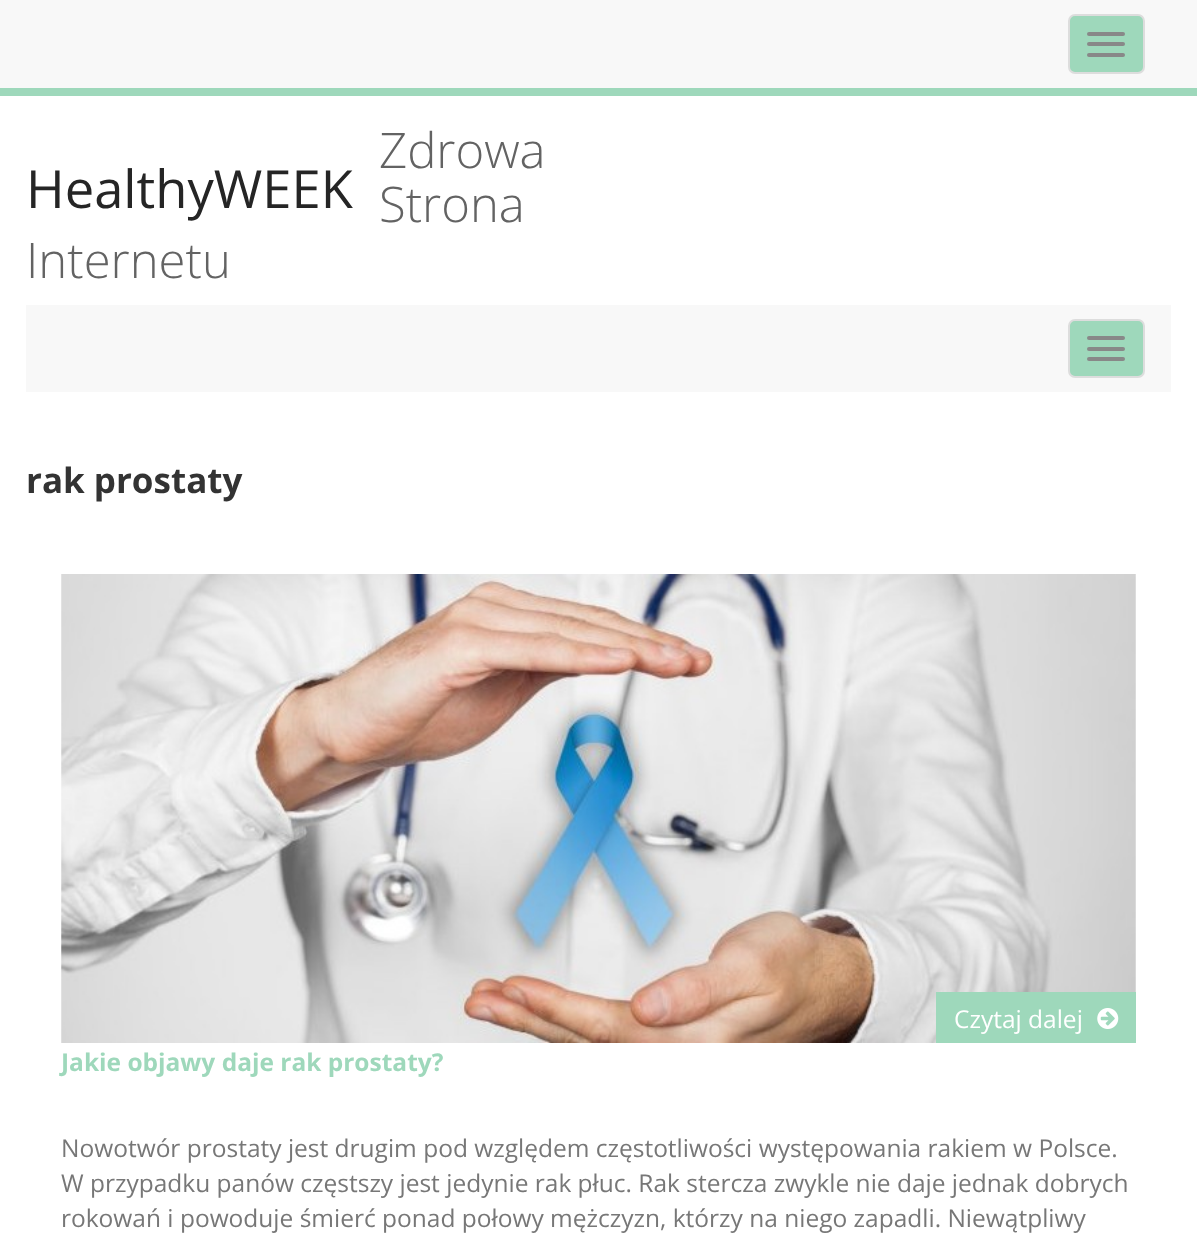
<!DOCTYPE html>
<meta charset="utf-8">
<style>body { margin: 0 } canvas { display: block }</style>
<canvas id="canvas" width="1197" height="1247"></canvas>
<img id="img1" src="img_01.png" hidden>
<img id="img2" src="img_02.png" hidden>
<script>
window.onload = function () {
	const canvas = document.getElementById("canvas");
	const ctx = canvas.getContext("2d");
	ctx.miterLimit = 4;
	ctx.fontKerning = "normal";
	function txt(s, x, y) {
		ctx.fillText(s, x, y);
	}
	function fill(x, y, w, h) {
		ctx.fillRect(x, y, w, h);
	}
	function round(x, y, w, h, r) {
		ctx.beginPath();
		ctx.roundRect(x, y, w, h, r);
		ctx.fill();
	}
	function img(id, x, y, w, h) {
		ctx.drawImage(document.getElementById(id), x, y, w, h);
	}

	ctx.fillStyle = "#FFFFFF";
	fill(0, 0, 1197, 1247);
	ctx.fillStyle = "#9ED8BB";
	fill(0, 88, 1197, 8);
	ctx.fillStyle = "#F8F8F8";
	fill(0, 0, 1197, 88);
	ctx.fillStyle = "#9ED8BB";
	ctx.beginPath();
	ctx.roundRect(1069, 15, 75, 58, 6);
	ctx.fill();
	ctx.strokeStyle = "#DDDDDD";
	ctx.lineWidth = 2;
	ctx.stroke();
	ctx.fillStyle = "#888888";
	round(1087, 32, 38, 4, 2);
	round(1087, 42, 38, 4, 2);
	round(1087, 53, 38, 4, 2);
	ctx.fillStyle = "#F8F8F8";
	fill(26, 305, 1145, 87);
	ctx.fillStyle = "#9ED8BB";
	ctx.beginPath();
	ctx.roundRect(1069, 320, 75, 57, 6);
	ctx.fill();
	ctx.stroke();
	ctx.fillStyle = "#888888";
	round(1087, 336, 38, 4, 2);
	round(1087, 347, 38, 4, 2);
	round(1087, 357, 38, 4, 2);
	img("img1", 61, 574, 1075, 469);
	ctx.fillStyle = "#9ED8BB";
	fill(936, 992, 200, 51);
	img("img2", 1097, 1008, 22, 21);
	ctx.font = "300 49px Open Sans";
	ctx.fillStyle = "#636363";
	txt("Zdrowa", 379, 168);
	txt("Strona", 379, 222);
	txt("Internetu", 26, 278);
	ctx.font = "52.5px Open Sans";
	ctx.fillStyle = "#252525";
	txt("HealthyWEEK", 26, 208);
	ctx.font = "bold 35px Open Sans";
	ctx.fillStyle = "#333333";
	txt("rak prostaty", 26, 493);
	ctx.font = "24.5px Open Sans";
	ctx.fillStyle = "#FFFFFF";
	txt("Czytaj dalej", 954, 1028);
	ctx.font = "bold 24.5px Open Sans";
	ctx.fillStyle = "#9ED8BB";
	txt("Jakie objawy daje rak prostaty?", 61, 1071);
	ctx.font = "24.5px Open Sans";
	ctx.fillStyle = "#777777";
	txt("Nowotwór prostaty jest drugim pod względem częstotliwości występowania rakiem w Polsce.", 61, 1157);
	txt("W przypadku panów częstszy jest jedynie rak płuc. Rak stercza zwykle nie daje jednak dobrych", 61, 1192);
	txt("rokowań i powoduje śmierć ponad połowy mężczyzn, którzy na niego zapadli. Niewątpliwy", 61, 1227);
};
</script>
